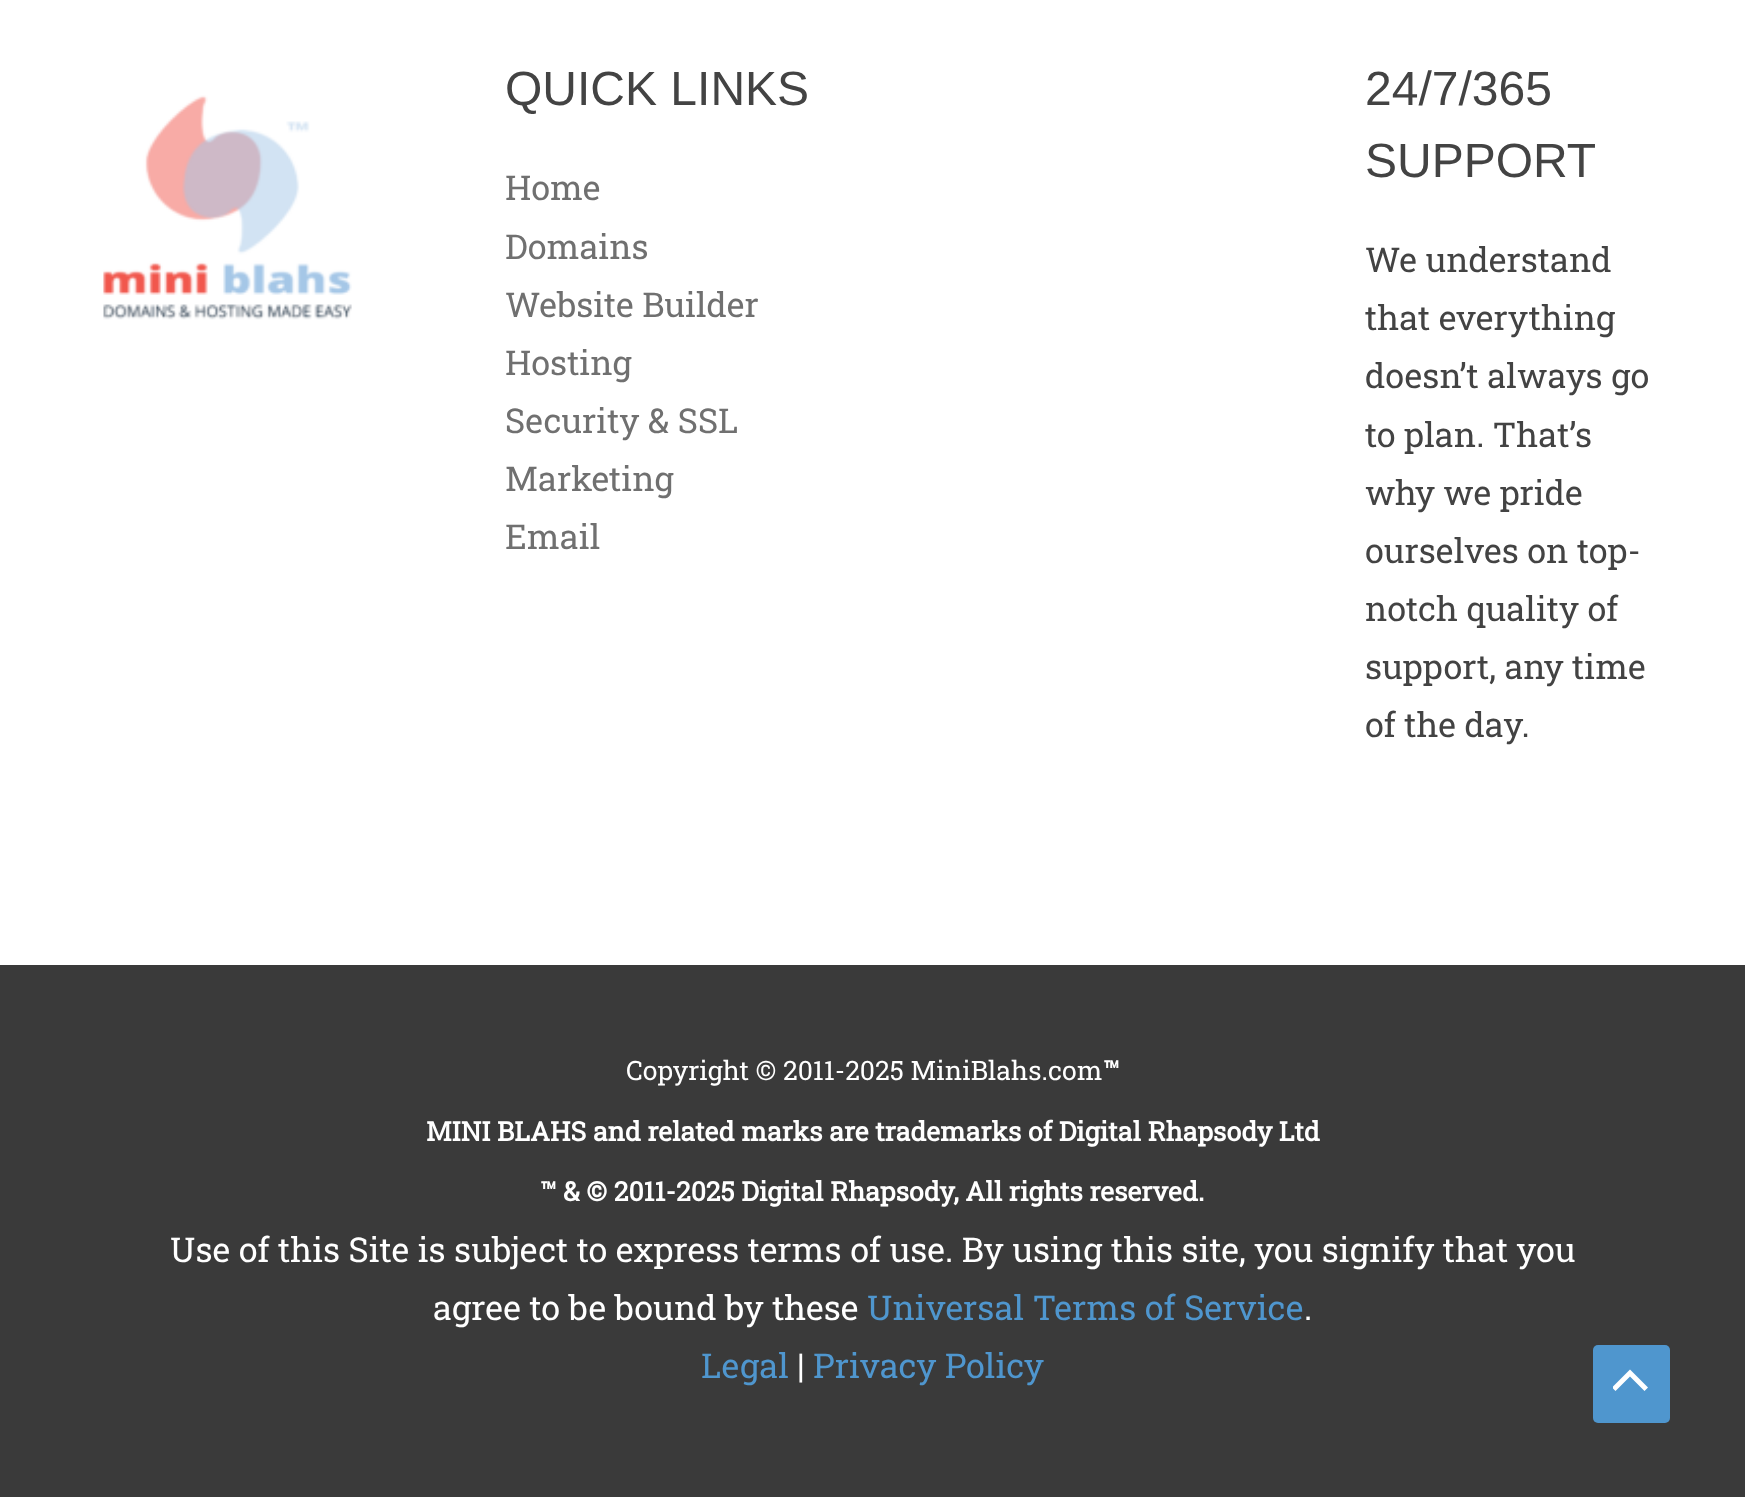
<!DOCTYPE html>
<meta charset="utf-8">
<style>body { margin: 0 } canvas { display: block }</style>
<canvas id="canvas" width="1745" height="1497"></canvas>
<img id="img1" src="img_01.png" hidden>
<script>
window.onload = function () {
	const canvas = document.getElementById("canvas");
	const ctx = canvas.getContext("2d");
	ctx.miterLimit = 4;
	ctx.fontKerning = "normal";
	function txt(s, x, y) {
		ctx.fillText(s, x, y);
	}
	function fill(x, y, w, h) {
		ctx.fillRect(x, y, w, h);
	}
	function round(x, y, w, h, r) {
		ctx.beginPath();
		ctx.roundRect(x, y, w, h, r);
		ctx.fill();
	}
	function img(id, x, y, w, h) {
		ctx.drawImage(document.getElementById(id), x, y, w, h);
	}

	ctx.fillStyle = "#FFFFFF";
	fill(0, 0, 1745, 1497);
	img("img1", 103, 95, 249, 225);
	ctx.fillStyle = "#3A3A3A";
	fill(0, 965, 1745, 532);
	ctx.fillStyle = "#4F96CE";
	round(1593, 1345, 77, 78, 5);
	ctx.save();
	ctx.beginPath();
	ctx.rect(1613, 1365, 37, 30);
	ctx.clip();
	ctx.fillStyle = "#FFFFFF";
	ctx.beginPath();
	ctx.moveTo(1648, 1387.5);
	ctx.lineTo(1630, 1369.5);
	ctx.lineTo(1612, 1387.5);
	ctx.lineTo(1615.5, 1391);
	ctx.lineTo(1630, 1376.5);
	ctx.lineTo(1644.5, 1391);
	ctx.closePath();
	ctx.fill();
	ctx.restore();
	ctx.font = "48px Liberation Sans";
	ctx.fillStyle = "#434343";
	txt("QUICK LINKS", 505, 105);
	ctx.font = "34.2px Roboto Slab";
	ctx.fillStyle = "#707070";
	txt("Home", 505, 200);
	txt("Domains", 505, 259);
	txt("Website Builder", 505, 317);
	txt("Hosting", 505, 375);
	txt("Security & SSL", 505, 433);
	txt("Marketing", 505, 491);
	txt("Email", 505, 549);
	ctx.font = "48px Liberation Sans";
	ctx.fillStyle = "#434343";
	txt("24/7/365", 1365, 105);
	txt("SUPPORT", 1365, 177);
	ctx.font = "34.2px Roboto Slab";
	txt("We understand", 1365, 272);
	txt("that everything", 1365, 330);
	txt("doesn’t always go", 1365, 388);
	txt("to plan. That’s", 1365, 447);
	txt("why we pride", 1365, 505);
	txt("ourselves on top-", 1365, 563);
	txt("notch quality of", 1365, 621);
	txt("support, any time", 1365, 679);
	txt("of the day.", 1365, 737);
	ctx.font = "26.65px Roboto Slab";
	ctx.fillStyle = "#FFFFFF";
	txt("Copyright © 2011-2025 MiniBlahs.com", 626, 1080);
	ctx.font = "bold 26.65px Roboto Slab";
	txt("™", 1103, 1080);
	txt("MINI BLAHS and related marks are trademarks of Digital Rhapsody Ltd", 426, 1141);
	txt("™ & © 2011-2025 Digital Rhapsody, All rights reserved.", 540, 1201);
	ctx.font = "34.2px Roboto Slab";
	txt("Use of this Site is subject to express terms of use. By using this site, you signify that you", 170, 1262);
	txt("agree to be bound by these", 433, 1320);
	ctx.fillStyle = "#4F96CE";
	txt("Universal Terms of Service", 867, 1320);
	ctx.fillStyle = "#FFFFFF";
	txt(".", 1304, 1320);
	ctx.fillStyle = "#4F96CE";
	txt("Legal", 701, 1378);
	ctx.fillStyle = "#FFFFFF";
	txt("|", 797, 1378);
	ctx.fillStyle = "#4F96CE";
	txt("Privacy Policy", 813, 1378);
};
</script>
